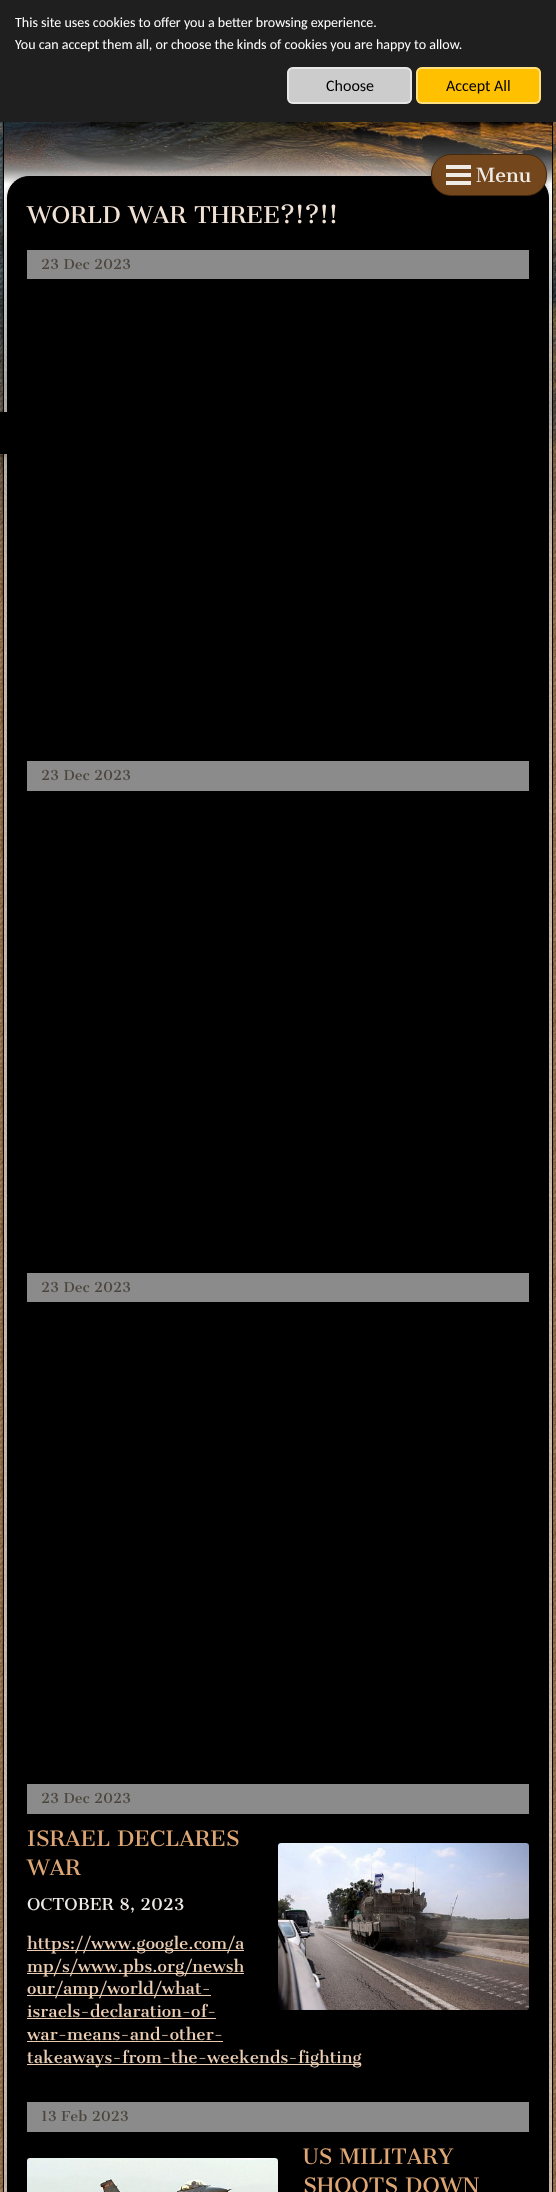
<!DOCTYPE html>
<meta charset="utf-8">
<style>body { margin: 0 } canvas { display: block }</style>
<canvas id="canvas" width="556" height="2192"></canvas>
<img id="img1" src="img_01.png" hidden>
<img id="img2" src="img_02.png" hidden>
<img id="img3" src="img_03.png" hidden>
<img id="img4" src="img_04.png" hidden>
<img id="img5" src="img_05.png" hidden>
<img id="img6" src="img_06.png" hidden>
<script>
window.onload = function () {
	const canvas = document.getElementById("canvas");
	const ctx = canvas.getContext("2d");
	ctx.miterLimit = 4;
	ctx.fontKerning = "normal";
	function txt(s, x, y) {
		ctx.fillText(s, x, y);
	}
	function fill(x, y, w, h) {
		ctx.fillRect(x, y, w, h);
	}
	function round(x, y, w, h, r) {
		ctx.beginPath();
		ctx.roundRect(x, y, w, h, r);
		ctx.fill();
	}
	function img(id, x, y, w, h) {
		ctx.drawImage(document.getElementById(id), x, y, w, h);
	}
	let gradient;

	ctx.fillStyle = "#FFFFFF";
	fill(0, 0, 556, 2192);
	img("img1", 0, 122, 556, 483);
	img("img2", 0, 122, 556, 483);
	gradient = ctx.createLinearGradient(278, 300, 278, 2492);
	gradient.addColorStop(0, "rgba(182, 110, 44, 0)");
	gradient.addColorStop(0.14, "#B66E2C");
	ctx.fillStyle = gradient;
	fill(0, 307, 556, 1885);
	img("img3", 0, 122, 556, 2070);
	ctx.save();
	ctx.beginPath();
	ctx.moveTo(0, 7);
	ctx.lineTo(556, 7);
	ctx.lineTo(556, 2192);
	ctx.lineTo(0, 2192);
	ctx.closePath();
	ctx.moveTo(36, 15);
	ctx.lineTo(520, 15);
	ctx.bezierCurveTo(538, 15, 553, 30, 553, 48);
	ctx.lineTo(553, 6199);
	ctx.bezierCurveTo(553, 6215.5, 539.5, 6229, 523, 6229);
	ctx.lineTo(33, 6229);
	ctx.bezierCurveTo(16.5, 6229, 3, 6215.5, 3, 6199);
	ctx.lineTo(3, 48);
	ctx.bezierCurveTo(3, 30, 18, 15, 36, 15);
	ctx.closePath();
	ctx.clip("evenodd");
	ctx.fillStyle = "rgba(0, 0, 0, 0.23)";
	ctx.filter = "blur(3px)";
	ctx.beginPath();
	ctx.roundRect(3, 17, 550, 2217, 33);
	ctx.fill();
	ctx.filter = "none";
	ctx.restore();
	ctx.fillStyle = "rgba(255, 255, 255, 0.6)";
	fill(4, 204, 548, 1988);
	ctx.strokeStyle = "#000000";
	ctx.strokeRect(3.5, 15.5, 549, 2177);
	ctx.fillStyle = "#1F1F1F";
	fill(0, 0, 556, 122);
	ctx.fillStyle = "#CCCCCC";
	round(287, 67, 125, 37, 6);
	ctx.beginPath();
	ctx.roundRect(288, 68, 123, 35, 5);
	ctx.strokeStyle = "rgba(255, 255, 255, 0.5)";
	ctx.lineWidth = 2;
	ctx.stroke();
	ctx.fillStyle = "#FFC000";
	round(416, 67, 125, 37, 6);
	ctx.beginPath();
	ctx.roundRect(417, 68, 123, 35, 5);
	ctx.stroke();
	img("img4", 4, 122, 548, 62);
	gradient = ctx.createLinearGradient(278, 378, 278, 184);
	gradient.addColorStop(0, "rgba(255, 255, 255, 0)");
	gradient.addColorStop(0.9, "#FFFFFF");
	ctx.fillStyle = gradient;
	fill(4, 184, 548, 189);
	ctx.fillStyle = "rgba(0, 0, 0, 0.23)";
	ctx.filter = "blur(3px)";
	ctx.beginPath();
	ctx.roundRect(7, 178, 542, 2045, 22);
	ctx.fill();
	ctx.filter = "none";
	ctx.fillStyle = "#000000";
	ctx.beginPath();
	ctx.moveTo(29, 176.5);
	ctx.lineTo(527, 176.5);
	ctx.bezierCurveTo(539, 176.5, 548.5, 186, 548.5, 198);
	ctx.lineTo(548.5, 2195);
	ctx.bezierCurveTo(548.5, 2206, 540, 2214.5, 529, 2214.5);
	ctx.lineTo(27, 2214.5);
	ctx.bezierCurveTo(16, 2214.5, 7.5, 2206, 7.5, 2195);
	ctx.lineTo(7.5, 198);
	ctx.bezierCurveTo(7.5, 186, 17, 176.5, 29, 176.5);
	ctx.closePath();
	ctx.fill();
	ctx.strokeStyle = "#010000";
	ctx.lineWidth = 1;
	ctx.stroke();
	ctx.fillStyle = "rgba(0, 0, 0, 0.23)";
	ctx.filter = "blur(3px)";
	ctx.beginPath();
	ctx.roundRect(431, 156, 116, 42, 20);
	ctx.fill();
	ctx.filter = "none";
	ctx.fillStyle = "#73461C";
	ctx.beginPath();
	ctx.roundRect(431.5, 154.5, 115, 41, 19.5);
	ctx.fill();
	ctx.strokeStyle = "#422810";
	ctx.stroke();
	ctx.fillStyle = "#F0EBE5";
	fill(446, 165, 25, 4);
	fill(446, 173, 25, 4);
	fill(446, 181, 25, 4);
	ctx.fillStyle = "rgba(0, 0, 0, 0.23)";
	ctx.filter = "blur(3px)";
	ctx.beginPath();
	ctx.roundRect(-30, 414, 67, 42, 21);
	ctx.fill();
	ctx.filter = "none";
	ctx.fillStyle = "#000000";
	ctx.beginPath();
	ctx.roundRect(0, 412, 37, 42, [0, 21, 21, 0]);
	ctx.fill();
	ctx.fillStyle = "#8B8B8B";
	fill(27, 250, 502, 29);
	fill(27, 761, 502, 30);
	fill(27, 1273, 502, 29);
	fill(27, 1784, 502, 30);
	img("img5", 278, 1843, 251, 167);
	ctx.fillStyle = "#EACDB3";
	fill(27, 1950, 217, 1);
	fill(27, 1973, 217, 1);
	fill(27, 1995, 184, 1);
	fill(27, 2018, 189, 1);
	fill(27, 2041, 196, 1);
	fill(27, 2064, 334, 1);
	ctx.fillStyle = "#8B8B8B";
	fill(27, 2102, 502, 30);
	img("img6", 27, 2158, 251, 34);
	ctx.font = "14px Carlito";
	ctx.fillStyle = "#FFFFFF";
	txt("This site uses cookies to offer you a better browsing experience.", 15, 27);
	txt("You can accept them all, or choose the kinds of cookies you are happy to allow.", 15, 49);
	ctx.font = "16px Carlito";
	ctx.fillStyle = "#000000";
	txt("Choose", 326, 91);
	txt("Accept All", 446, 91);
	ctx.font = "19px Cantata One";
	ctx.fillStyle = "#EFEBE6";
	txt("Menu", 476, 182);
	ctx.font = "22.5px Cantata One";
	ctx.fillStyle = "#F1E2D5";
	txt("WORLD WAR THREE?!?!!", 27, 223);
	ctx.font = "13.5px Cantata One";
	ctx.fillStyle = "#4C463E";
	txt("23 Dec 2023", 41, 269);
	txt("23 Dec 2023", 41, 780);
	txt("23 Dec 2023", 41, 1292);
	txt("23 Dec 2023", 41, 1803);
	ctx.font = "20.75px Cantata One";
	ctx.fillStyle = "#DDA674";
	txt("ISRAEL DECLARES", 27, 1846);
	txt("WAR", 27, 1875);
	ctx.font = "16px Cantata One";
	ctx.fillStyle = "#EFEBE6";
	txt("OCTOBER 8, 2023", 27, 1910);
	ctx.fillStyle = "#EACDB3";
	txt("https://www.google.com/a", 27, 1949);
	txt("mp/s/www.pbs.org/newsh", 27, 1972);
	txt("our/amp/world/what-", 27, 1994);
	txt("israels-declaration-of-", 27, 2017);
	txt("war-means-and-other-", 27, 2040);
	txt("takeaways-from-the-weekends-fighting", 27, 2063);
	ctx.font = "13.5px Cantata One";
	ctx.fillStyle = "#4C463E";
	txt("13 Feb 2023", 41, 2121);
	ctx.font = "20.75px Cantata One";
	ctx.fillStyle = "#DDA674";
	txt("US MILITARY", 303, 2164);
	txt("SHOOTS DOWN", 303, 2193);
};
</script>
